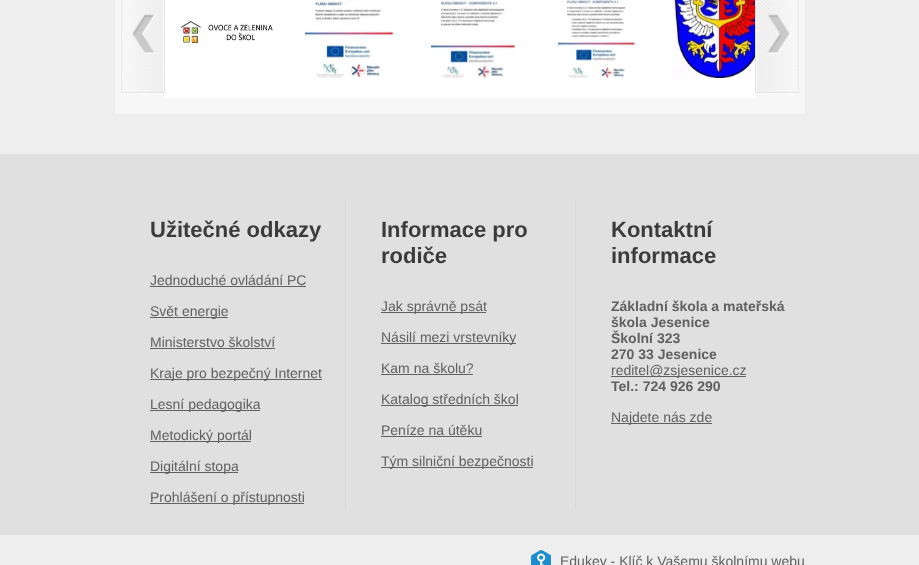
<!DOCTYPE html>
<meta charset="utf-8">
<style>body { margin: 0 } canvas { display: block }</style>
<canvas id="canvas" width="919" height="565"></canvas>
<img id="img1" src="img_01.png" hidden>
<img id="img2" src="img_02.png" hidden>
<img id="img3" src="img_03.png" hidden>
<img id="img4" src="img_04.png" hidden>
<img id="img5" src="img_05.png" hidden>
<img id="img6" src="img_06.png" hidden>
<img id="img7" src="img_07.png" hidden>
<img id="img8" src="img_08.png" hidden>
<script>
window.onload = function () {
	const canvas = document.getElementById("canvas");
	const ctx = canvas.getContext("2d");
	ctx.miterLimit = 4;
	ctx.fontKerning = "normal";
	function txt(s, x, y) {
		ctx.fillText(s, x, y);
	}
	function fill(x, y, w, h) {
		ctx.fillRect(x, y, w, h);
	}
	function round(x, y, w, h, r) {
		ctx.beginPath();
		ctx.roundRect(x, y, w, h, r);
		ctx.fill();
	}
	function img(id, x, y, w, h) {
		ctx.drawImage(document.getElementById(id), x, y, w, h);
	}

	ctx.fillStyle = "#EEEEEE";
	fill(0, 0, 919, 565);
	ctx.fillStyle = "#F7F7F7";
	fill(115, 0, 690, 114);
	ctx.fillStyle = "#FFFFFF";
	fill(120, 0, 680, 98);
	ctx.fillStyle = "#F7F7F7";
	round(120, -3, 45, 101, 3);
	img("img1", 120, 0, 45, 94);
	round(755, -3, 45, 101, 3);
	img("img2", 755, 0, 45, 94);
	img("img3", 181, 21, 92, 24);
	img("img4", 305, 0, 89, 78);
	img("img5", 431, 0, 84, 78);
	img("img6", 558, 0, 77, 78);
	img("img7", 674, 0, 81, 78);
	ctx.fillStyle = "#E0E0E0";
	fill(0, 154, 919, 381);
	ctx.fillStyle = "#616060";
	fill(150, 286, 156, 1);
	fill(150, 317, 78, 1);
	fill(150, 348, 125, 1);
	fill(150, 379, 172, 1);
	fill(150, 410, 110, 1);
	fill(150, 441, 101, 1);
	fill(150, 472, 88, 1);
	fill(150, 503, 154, 1);
	ctx.fillStyle = "#D8D8D8";
	fill(345, 199, 1, 311);
	ctx.fillStyle = "#616060";
	fill(381, 312, 105, 1);
	fill(381, 343, 135, 1);
	fill(381, 374, 92, 1);
	fill(381, 405, 137, 1);
	fill(381, 436, 101, 1);
	fill(381, 467, 152, 1);
	ctx.fillStyle = "#D8D8D8";
	fill(575, 199, 1, 311);
	ctx.fillStyle = "#616060";
	fill(611, 376, 135, 1);
	fill(611, 423, 101, 1);
	img("img8", 531, 550, 20, 15);
	ctx.font = "bold 22px Liberation Sans";
	ctx.fillStyle = "#3B3B3B";
	txt("Užitečné odkazy", 150, 237);
	ctx.font = "14px Liberation Sans";
	ctx.fillStyle = "#616060";
	txt("Jednoduché ovládání PC", 150, 285);
	txt("Svět energie", 150, 316);
	txt("Ministerstvo školství", 150, 347);
	txt("Kraje pro bezpečný Internet", 150, 378);
	txt("Lesní pedagogika", 150, 409);
	txt("Metodický portál", 150, 440);
	txt("Digitální stopa", 150, 471);
	txt("Prohlášení o přístupnosti", 150, 502);
	ctx.font = "bold 22px Liberation Sans";
	ctx.fillStyle = "#3B3B3B";
	txt("Informace pro", 381, 237);
	txt("rodiče", 381, 263);
	ctx.font = "14px Liberation Sans";
	ctx.fillStyle = "#616060";
	txt("Jak správně psát", 381, 311);
	txt("Násilí mezi vrstevníky", 381, 342);
	txt("Kam na školu?", 381, 373);
	txt("Katalog středních škol", 381, 404);
	txt("Peníze na útěku", 381, 435);
	txt("Tým silniční bezpečnosti", 381, 466);
	ctx.font = "bold 22px Liberation Sans";
	ctx.fillStyle = "#3B3B3B";
	txt("Kontaktní", 611, 237);
	txt("informace", 611, 263);
	ctx.font = "bold 14px Liberation Sans";
	ctx.fillStyle = "#616060";
	txt("Základní škola a mateřská", 611, 311);
	txt("škola Jesenice", 611, 327);
	txt("Školní 323", 611, 343);
	txt("270 33 Jesenice", 611, 359);
	ctx.font = "14px Liberation Sans";
	txt("reditel@zsjesenice.cz", 611, 375);
	ctx.font = "bold 14px Liberation Sans";
	txt("Tel.: 724 926 290", 611, 391);
	ctx.font = "14px Liberation Sans";
	txt("Najdete nás zde", 611, 422);
	txt("Edukey - Klíč k Vašemu školnímu webu", 560, 566);
};
</script>
